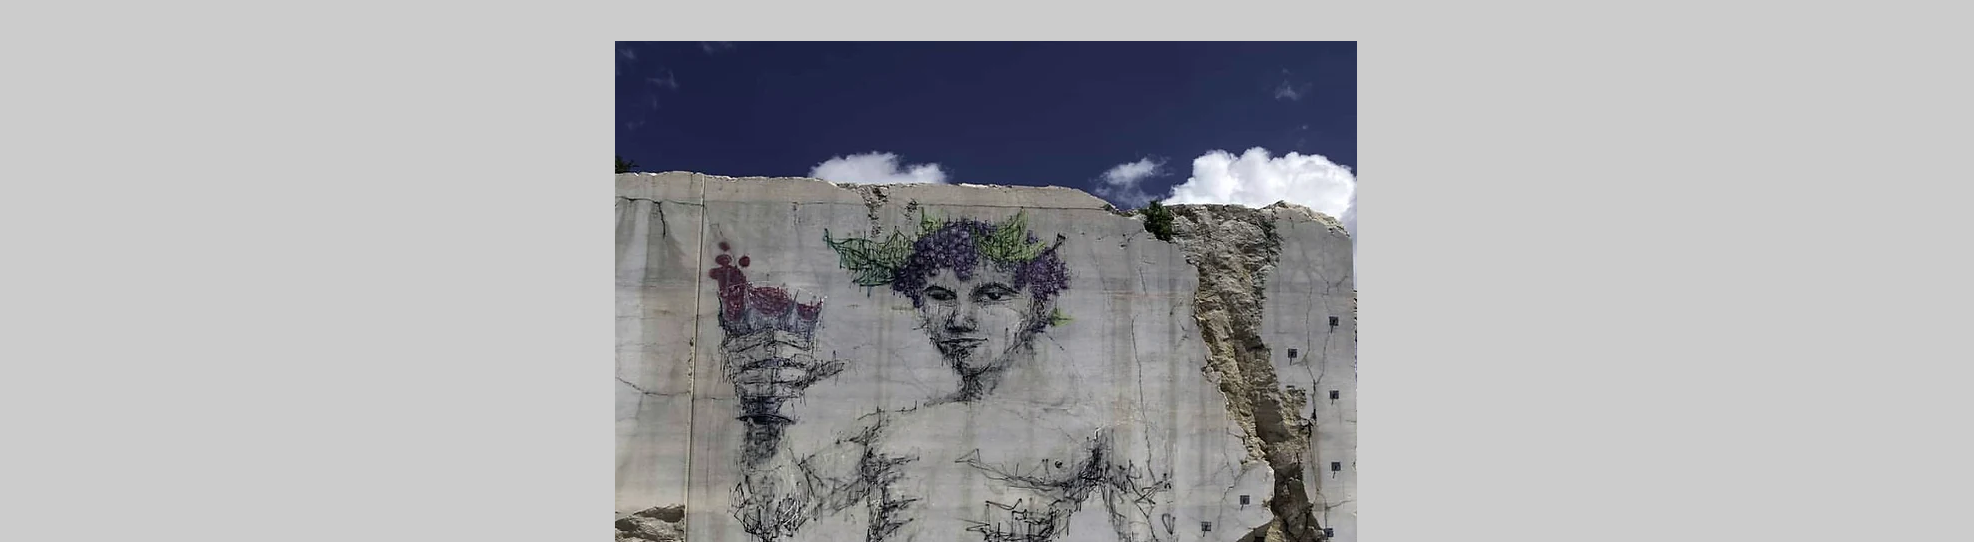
<!DOCTYPE html>
<meta charset="utf-8">
<style>body { margin: 0 } canvas { display: block }</style>
<canvas id="canvas" width="1974" height="542"></canvas>
<img id="img1" src="img_01.png" hidden>
<script>
window.onload = function () {
	const canvas = document.getElementById("canvas");
	const ctx = canvas.getContext("2d");
	ctx.miterLimit = 4;
	ctx.fontKerning = "normal";
	function fill(x, y, w, h) {
		ctx.fillRect(x, y, w, h);
	}
	function img(id, x, y, w, h) {
		ctx.drawImage(document.getElementById(id), x, y, w, h);
	}

	ctx.fillStyle = "#CCCCCC";
	fill(0, 0, 1974, 542);
	img("img1", 615, 41, 742, 501);
};
</script>
